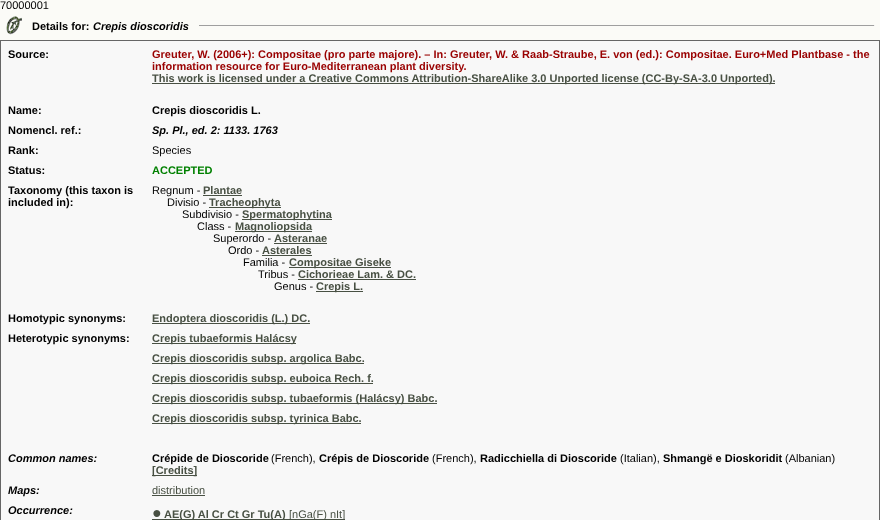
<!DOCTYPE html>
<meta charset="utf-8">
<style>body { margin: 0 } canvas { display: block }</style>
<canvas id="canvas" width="880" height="520"></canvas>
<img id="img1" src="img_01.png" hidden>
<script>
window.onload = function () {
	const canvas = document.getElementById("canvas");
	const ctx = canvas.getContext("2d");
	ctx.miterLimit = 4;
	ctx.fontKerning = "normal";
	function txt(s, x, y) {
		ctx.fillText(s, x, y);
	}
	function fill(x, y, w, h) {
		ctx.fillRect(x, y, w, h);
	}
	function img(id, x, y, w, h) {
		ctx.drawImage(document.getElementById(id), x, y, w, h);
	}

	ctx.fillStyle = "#FBFBF7";
	fill(0, 0, 880, 520);
	img("img1", 6, 16, 16, 19);
	ctx.fillStyle = "#9F9F9F";
	fill(199, 25, 676, 1);
	ctx.fillStyle = "#EEEEEE";
	fill(874, 25, 1, 1);
	ctx.fillStyle = "#666666";
	fill(0, 40, 880, 1);
	fill(879, 40, 1, 480);
	fill(0, 40, 1, 480);
	ctx.fillStyle = "#F8F8F8";
	fill(1, 41, 878, 479);
	ctx.fillStyle = "#485043";
	fill(152, 83, 623, 1);
	fill(203, 195, 39, 1);
	fill(209, 207, 72, 1);
	fill(242, 219, 90, 1);
	fill(235, 231, 77, 1);
	fill(274, 243, 53, 1);
	fill(262, 255, 50, 1);
	fill(289, 267, 102, 1);
	fill(298, 279, 118, 1);
	fill(316, 291, 47, 1);
	fill(152, 323, 158, 1);
	fill(152, 343, 144, 1);
	fill(152, 363, 212, 1);
	fill(152, 383, 221, 1);
	fill(152, 403, 285, 1);
	fill(152, 423, 209, 1);
	fill(152, 475, 45, 1);
	fill(152, 495, 53, 1);
	fill(152, 519, 193, 1);
	ctx.font = "11px Liberation Sans";
	ctx.fillStyle = "#000000";
	txt("70000001", 0, 9);
	ctx.font = "bold 11px Liberation Sans";
	txt("Details for:", 32, 30);
	ctx.font = "italic bold 11px Liberation Sans";
	txt("Crepis dioscoridis", 93, 30);
	ctx.font = "bold 11px Liberation Sans";
	txt("Source:", 8, 58);
	ctx.fillStyle = "#990000";
	txt("Greuter, W. (2006+): Compositae (pro parte majore). – In: Greuter, W. & Raab-Straube, E. von (ed.): Compositae. Euro+Med Plantbase - the", 152, 58);
	txt("information resource for Euro-Mediterranean plant diversity.", 152, 70);
	ctx.fillStyle = "#485043";
	txt("This work is licensed under a Creative Commons Attribution-ShareAlike 3.0 Unported license (CC-By-SA-3.0 Unported).", 152, 82);
	ctx.fillStyle = "#000000";
	txt("Name:", 8, 114);
	txt("Crepis dioscoridis L.", 152, 114);
	txt("Nomencl. ref.:", 8, 134);
	ctx.font = "italic bold 11px Liberation Sans";
	txt("Sp. Pl., ed. 2: 1133. 1763", 152, 134);
	ctx.font = "bold 11px Liberation Sans";
	txt("Rank:", 8, 154);
	ctx.font = "11px Liberation Sans";
	txt("Species", 152, 154);
	ctx.font = "bold 11px Liberation Sans";
	txt("Status:", 8, 174);
	ctx.fillStyle = "#008000";
	txt("ACCEPTED", 152, 174);
	ctx.fillStyle = "#000000";
	txt("Taxonomy (this taxon is", 8, 194);
	txt("included in):", 8, 206);
	ctx.font = "11px Liberation Sans";
	txt("Regnum -", 152, 194);
	ctx.font = "bold 11px Liberation Sans";
	ctx.fillStyle = "#485043";
	txt("Plantae", 203, 194);
	ctx.font = "11px Liberation Sans";
	ctx.fillStyle = "#000000";
	txt("Divisio -", 167, 206);
	ctx.font = "bold 11px Liberation Sans";
	ctx.fillStyle = "#485043";
	txt("Tracheophyta", 209, 206);
	ctx.font = "11px Liberation Sans";
	ctx.fillStyle = "#000000";
	txt("Subdivisio -", 182, 218);
	ctx.font = "bold 11px Liberation Sans";
	ctx.fillStyle = "#485043";
	txt("Spermatophytina", 242, 218);
	ctx.font = "11px Liberation Sans";
	ctx.fillStyle = "#000000";
	txt("Class -", 197, 230);
	ctx.font = "bold 11px Liberation Sans";
	ctx.fillStyle = "#485043";
	txt("Magnoliopsida", 235, 230);
	ctx.font = "11px Liberation Sans";
	ctx.fillStyle = "#000000";
	txt("Superordo -", 213, 242);
	ctx.font = "bold 11px Liberation Sans";
	ctx.fillStyle = "#485043";
	txt("Asteranae", 274, 242);
	ctx.font = "11px Liberation Sans";
	ctx.fillStyle = "#000000";
	txt("Ordo -", 228, 254);
	ctx.font = "bold 11px Liberation Sans";
	ctx.fillStyle = "#485043";
	txt("Asterales", 262, 254);
	ctx.font = "11px Liberation Sans";
	ctx.fillStyle = "#000000";
	txt("Familia -", 243, 266);
	ctx.font = "bold 11px Liberation Sans";
	ctx.fillStyle = "#485043";
	txt("Compositae Giseke", 289, 266);
	ctx.font = "11px Liberation Sans";
	ctx.fillStyle = "#000000";
	txt("Tribus -", 258, 278);
	ctx.font = "bold 11px Liberation Sans";
	ctx.fillStyle = "#485043";
	txt("Cichorieae Lam. & DC.", 298, 278);
	ctx.font = "11px Liberation Sans";
	ctx.fillStyle = "#000000";
	txt("Genus -", 274, 290);
	ctx.font = "bold 11px Liberation Sans";
	ctx.fillStyle = "#485043";
	txt("Crepis L.", 316, 290);
	ctx.fillStyle = "#000000";
	txt("Homotypic synonyms:", 8, 322);
	ctx.fillStyle = "#485043";
	txt("Endoptera dioscoridis (L.) DC.", 152, 322);
	ctx.fillStyle = "#000000";
	txt("Heterotypic synonyms:", 8, 342);
	ctx.fillStyle = "#485043";
	txt("Crepis tubaeformis Halácsy", 152, 342);
	txt("Crepis dioscoridis subsp. argolica Babc.", 152, 362);
	txt("Crepis dioscoridis subsp. euboica Rech. f.", 152, 382);
	txt("Crepis dioscoridis subsp. tubaeformis (Halácsy) Babc.", 152, 402);
	txt("Crepis dioscoridis subsp. tyrinica Babc.", 152, 422);
	ctx.font = "italic bold 11px Liberation Sans";
	ctx.fillStyle = "#000000";
	txt("Common names:", 8, 462);
	ctx.font = "bold 11px Liberation Sans";
	txt("Crépide de Dioscoride", 152, 462);
	ctx.font = "11px Liberation Sans";
	txt("(French),", 271, 462);
	ctx.font = "bold 11px Liberation Sans";
	txt("Crépis de Dioscoride", 319, 462);
	ctx.font = "11px Liberation Sans";
	txt("(French),", 432, 462);
	ctx.font = "bold 11px Liberation Sans";
	txt("Radicchiella di Dioscoride", 480, 462);
	ctx.font = "11px Liberation Sans";
	txt("(Italian),", 620, 462);
	ctx.font = "bold 11px Liberation Sans";
	txt("Shmangë e Dioskoridit", 663, 462);
	ctx.font = "11px Liberation Sans";
	txt("(Albanian)", 785, 462);
	ctx.font = "bold 11px Liberation Sans";
	ctx.fillStyle = "#485043";
	txt("[Credits]", 152, 474);
	ctx.font = "italic bold 11px Liberation Sans";
	ctx.fillStyle = "#000000";
	txt("Maps:", 8, 494);
	ctx.font = "11px Liberation Sans";
	ctx.fillStyle = "#485043";
	txt("distribution", 152, 494);
	ctx.font = "italic bold 11px Liberation Sans";
	ctx.fillStyle = "#000000";
	txt("Occurrence:", 8, 514);
	ctx.font = "bold 16px Liberation Sans";
	ctx.fillStyle = "#485043";
	txt("●", 152, 518);
	ctx.font = "bold 11px Liberation Sans";
	txt("AE(G) Al Cr Ct Gr Tu(A)", 164, 518);
	ctx.font = "11px Liberation Sans";
	txt("[nGa(F) nIt]", 289, 518);
};
</script>
